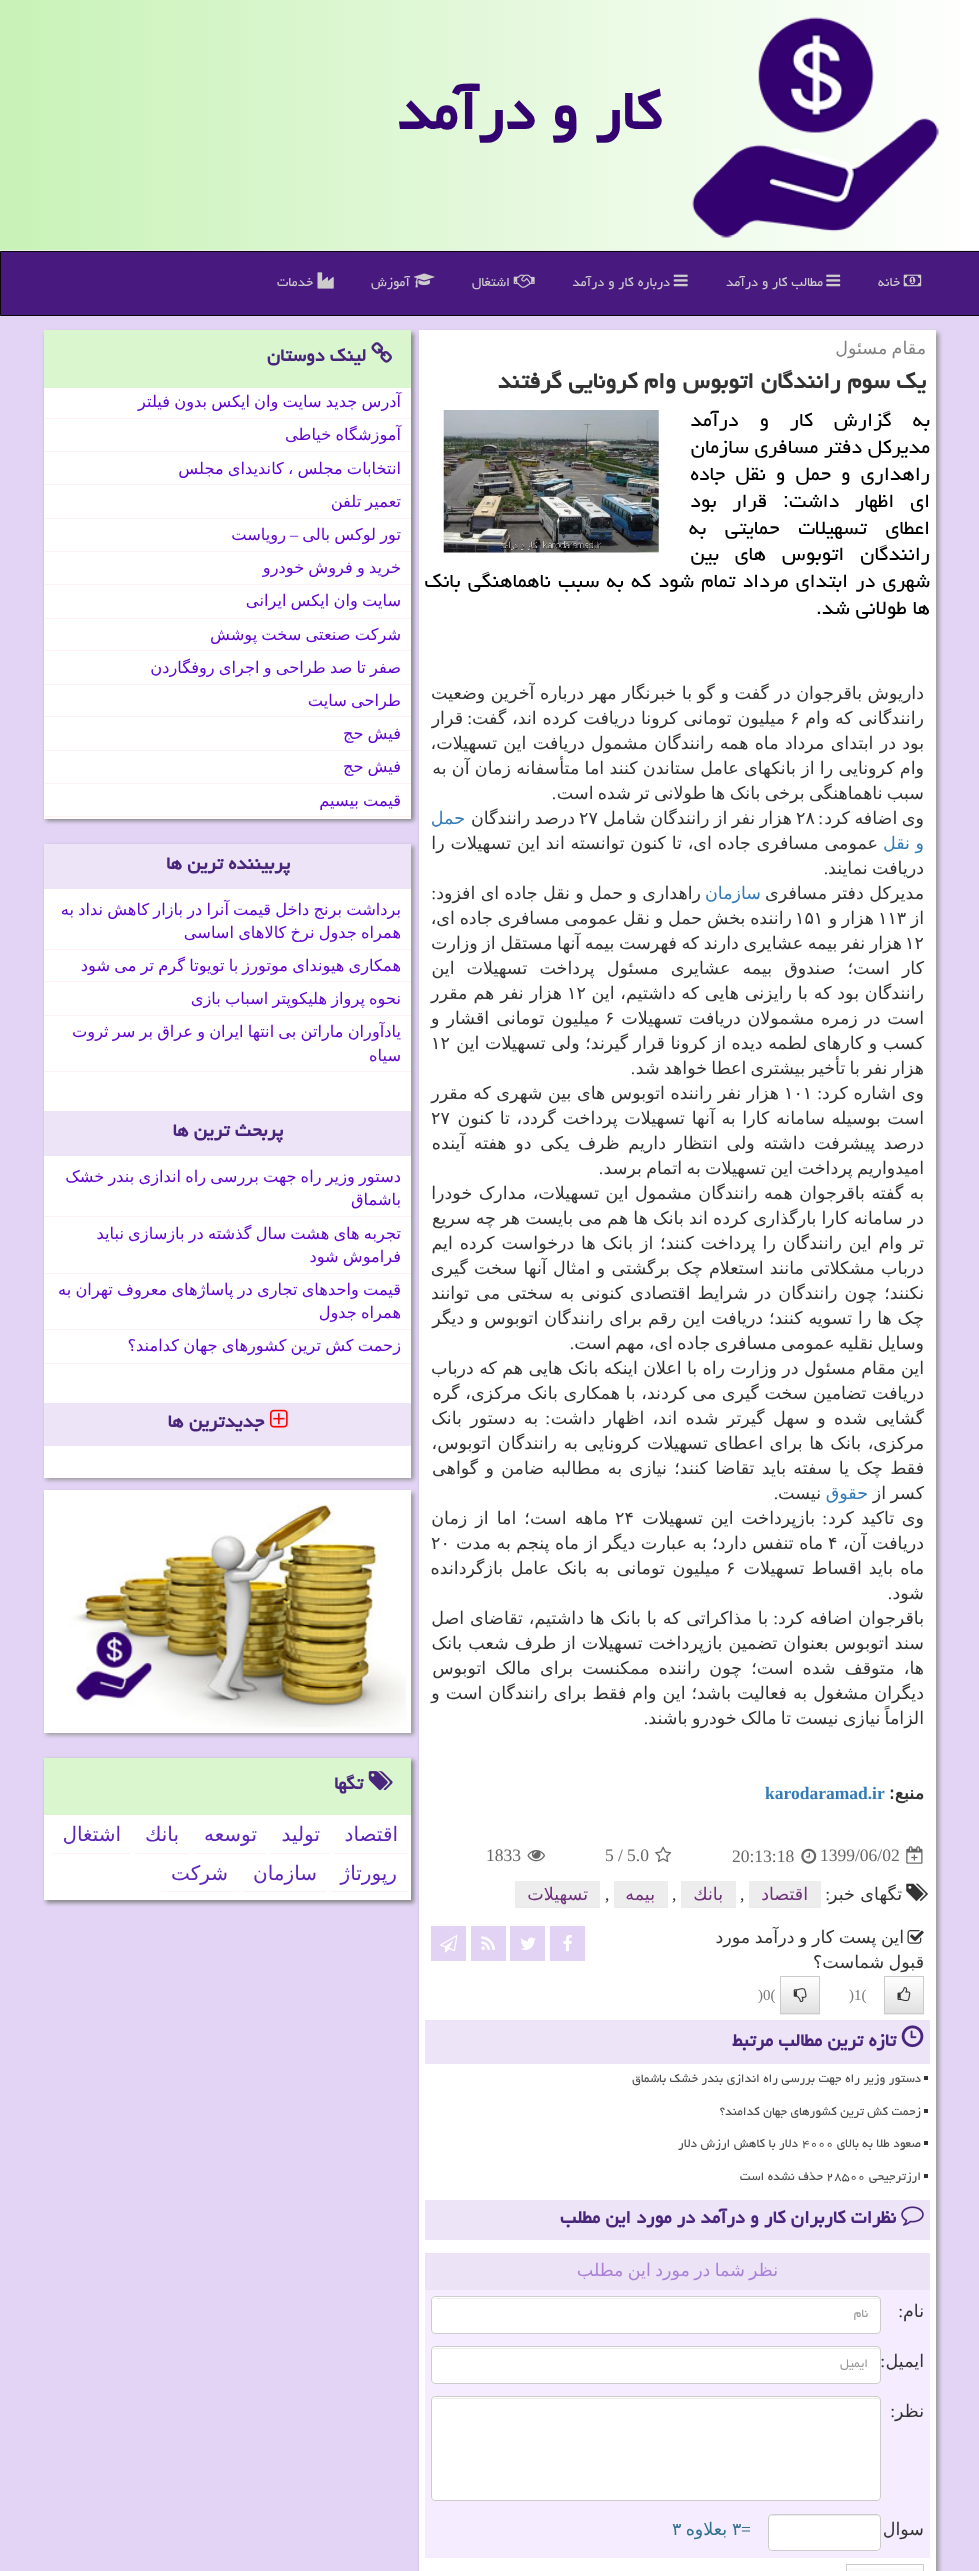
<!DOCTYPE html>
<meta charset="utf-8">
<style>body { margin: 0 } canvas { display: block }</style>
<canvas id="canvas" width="979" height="2571"></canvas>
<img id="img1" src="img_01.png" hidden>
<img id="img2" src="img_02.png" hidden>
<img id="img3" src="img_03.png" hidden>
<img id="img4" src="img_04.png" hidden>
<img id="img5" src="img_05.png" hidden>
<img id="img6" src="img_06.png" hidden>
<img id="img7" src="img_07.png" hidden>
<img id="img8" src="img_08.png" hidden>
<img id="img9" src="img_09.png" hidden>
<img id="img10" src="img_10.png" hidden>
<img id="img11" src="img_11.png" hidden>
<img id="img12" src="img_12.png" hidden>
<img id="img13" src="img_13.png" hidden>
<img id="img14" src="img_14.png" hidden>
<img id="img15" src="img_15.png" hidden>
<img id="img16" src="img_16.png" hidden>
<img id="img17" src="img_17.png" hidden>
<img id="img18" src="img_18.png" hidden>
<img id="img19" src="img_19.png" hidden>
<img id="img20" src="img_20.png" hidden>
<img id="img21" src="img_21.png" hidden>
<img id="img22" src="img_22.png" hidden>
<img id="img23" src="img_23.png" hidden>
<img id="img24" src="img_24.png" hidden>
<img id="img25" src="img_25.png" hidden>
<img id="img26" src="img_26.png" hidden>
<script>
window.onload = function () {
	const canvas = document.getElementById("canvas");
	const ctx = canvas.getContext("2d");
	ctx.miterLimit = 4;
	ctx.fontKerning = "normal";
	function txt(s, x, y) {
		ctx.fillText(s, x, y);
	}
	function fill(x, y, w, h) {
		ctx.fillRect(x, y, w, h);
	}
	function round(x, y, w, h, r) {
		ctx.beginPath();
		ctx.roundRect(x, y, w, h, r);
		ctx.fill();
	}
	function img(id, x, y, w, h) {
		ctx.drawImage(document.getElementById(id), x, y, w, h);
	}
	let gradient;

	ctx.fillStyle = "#E3D4F6";
	fill(0, 0, 979, 2571);
	gradient = ctx.createLinearGradient(0, 125, 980, 125);
	gradient.addColorStop(0, "#C8F2B7");
	gradient.addColorStop(1, "#FFFFFF");
	ctx.fillStyle = gradient;
	fill(0, 0, 979, 250);
	ctx.fillStyle = "#EEEEEE";
	fill(0, 250, 979, 1);
	img("img1", 692, 17, 247, 221);
	ctx.fillStyle = "#481A80";
	ctx.beginPath();
	ctx.rect(0.5, 251.5, 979, 64);
	ctx.fill();
	ctx.strokeStyle = "#080808";
	ctx.stroke();
	img("img2", 903, 274, 19, 13);
	img("img3", 826, 274, 15, 13);
	img("img4", 673, 274, 15, 13);
	img("img5", 513, 274, 22, 14);
	img("img6", 413, 273, 22, 15);
	img("img7", 317, 272, 17, 17);
	ctx.fillStyle = "#999999";
	ctx.filter = "blur(2px)";
	ctx.beginPath();
	ctx.rect(421, 333, 518, 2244);
	ctx.fill();
	ctx.filter = "none";
	ctx.fillStyle = "#FFFFFF";
	fill(419, 330, 517, 2241);
	img("img8", 443, 410, 216, 143);
	img("img9", 906, 1846, 17, 18);
	img("img10", 801, 1848, 16, 16);
	img("img11", 655, 1846, 17, 16);
	img("img12", 527, 1850, 18, 12);
	img("img13", 906, 1883, 22, 19);
	ctx.fillStyle = "#EDEDED";
	fill(749, 1881, 72, 27);
	fill(681, 1881, 55, 27);
	fill(614, 1881, 54, 27);
	fill(515, 1881, 85, 27);
	img("img14", 907, 1930, 17, 14);
	ctx.fillStyle = "rgba(0, 0, 0, 0.07)";
	ctx.filter = "blur(0.5px)";
	ctx.beginPath();
	ctx.rect(884, 1978, 40, 37);
	ctx.fill();
	ctx.filter = "none";
	gradient = ctx.createLinearGradient(904, 1978, 904, 2013);
	gradient.addColorStop(0, "#FFFFFF");
	gradient.addColorStop(1, "#E0E0E0");
	ctx.fillStyle = gradient;
	fill(885, 1978, 38, 35);
	ctx.strokeStyle = "#CCCCCC";
	ctx.strokeRect(884.5, 1976.5, 39, 37);
	img("img15", 897, 1987, 14, 15);
	ctx.fillStyle = "rgba(0, 0, 0, 0.07)";
	ctx.filter = "blur(0.5px)";
	ctx.beginPath();
	ctx.rect(780, 1978, 40, 37);
	ctx.fill();
	ctx.filter = "none";
	gradient = ctx.createLinearGradient(800, 1978, 800, 2013);
	gradient.addColorStop(0, "#FFFFFF");
	gradient.addColorStop(1, "#E0E0E0");
	ctx.fillStyle = gradient;
	fill(781, 1978, 38, 35);
	ctx.strokeRect(780.5, 1976.5, 39, 37);
	img("img16", 793, 1988, 14, 15);
	ctx.fillStyle = "#E2D3F4";
	fill(550, 1926, 35, 35);
	img("img17", 563, 1935, 9, 17);
	fill(510, 1926, 35, 35);
	img("img18", 521, 1937, 15, 13);
	fill(471, 1926, 35, 35);
	img("img19", 481, 1936, 14, 14);
	fill(431, 1926, 35, 35);
	img("img20", 440, 1935, 18, 18);
	ctx.fillStyle = "#EDE4F7";
	fill(425, 2020, 505, 44);
	img("img21", 901, 2025, 23, 23);
	ctx.fillStyle = "#333333";
	fill(924, 2076, 4, 4);
	fill(924, 2109, 4, 4);
	fill(924, 2141, 4, 4);
	fill(924, 2174, 4, 4);
	ctx.fillStyle = "#EDE4F7";
	fill(425, 2200, 505, 40);
	img("img22", 901, 2206, 23, 20);
	ctx.fillStyle = "#ECE3F6";
	fill(425, 2253, 505, 37);
	ctx.fillStyle = "#F5ECFF";
	fill(425, 2290, 505, 268);
	ctx.fillStyle = "#FFFFFF";
	round(431, 2296, 450, 38, 4);
	ctx.fillStyle = "#ECECEC";
	ctx.beginPath();
	ctx.moveTo(435, 2299);
	ctx.lineTo(878, 2299);
	ctx.bezierCurveTo(879, 2299, 880, 2300, 880, 2301);
	ctx.lineTo(880, 2300);
	ctx.bezierCurveTo(880, 2299, 879, 2298, 878, 2298);
	ctx.lineTo(436, 2298);
	ctx.bezierCurveTo(434, 2298, 434, 2299, 433, 2300);
	ctx.closePath();
	ctx.fill();
	ctx.beginPath();
	ctx.roundRect(431.5, 2296.5, 449, 37, 3.5);
	ctx.stroke();
	ctx.fillStyle = "#FFFFFF";
	round(431, 2346, 450, 38, 4);
	ctx.fillStyle = "#ECECEC";
	ctx.beginPath();
	ctx.moveTo(435, 2349);
	ctx.lineTo(878, 2349);
	ctx.bezierCurveTo(879, 2349, 880, 2350, 880, 2351);
	ctx.lineTo(880, 2350);
	ctx.bezierCurveTo(880, 2349, 879, 2348, 878, 2348);
	ctx.lineTo(436, 2348);
	ctx.bezierCurveTo(434, 2348, 434, 2349, 433, 2350);
	ctx.closePath();
	ctx.fill();
	ctx.beginPath();
	ctx.roundRect(431.5, 2346.5, 449, 37, 3.5);
	ctx.stroke();
	ctx.fillStyle = "#FFFFFF";
	round(431, 2396, 450, 105, 4);
	ctx.fillStyle = "#ECECEC";
	ctx.beginPath();
	ctx.moveTo(435, 2399);
	ctx.lineTo(878, 2399);
	ctx.bezierCurveTo(879, 2399, 880, 2400, 880, 2401);
	ctx.lineTo(880, 2400);
	ctx.bezierCurveTo(880, 2399, 879, 2398, 878, 2398);
	ctx.lineTo(436, 2398);
	ctx.bezierCurveTo(434, 2398, 434, 2399, 433, 2400);
	ctx.closePath();
	ctx.fill();
	ctx.beginPath();
	ctx.roundRect(431.5, 2396.5, 449, 104, 3.5);
	ctx.stroke();
	ctx.fillStyle = "#FFFFFF";
	round(768, 2514, 113, 37, 4);
	ctx.fillStyle = "#ECECEC";
	ctx.beginPath();
	ctx.moveTo(771, 2516);
	ctx.lineTo(878, 2516);
	ctx.bezierCurveTo(879, 2516, 880, 2517, 880, 2519);
	ctx.lineTo(880, 2518);
	ctx.bezierCurveTo(880, 2516, 879, 2515, 878, 2515);
	ctx.lineTo(772, 2515);
	ctx.bezierCurveTo(770, 2515, 769, 2516, 769, 2518);
	ctx.lineTo(769, 2519);
	ctx.bezierCurveTo(769, 2517, 770, 2516, 771, 2516);
	ctx.closePath();
	ctx.fill();
	ctx.beginPath();
	ctx.roundRect(768.5, 2514.5, 112, 36, 3.5);
	ctx.stroke();
	gradient = ctx.createLinearGradient(885, 2565, 885, 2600);
	gradient.addColorStop(0, "#FFFFFF");
	gradient.addColorStop(1, "#E0E0E0");
	ctx.fillStyle = gradient;
	fill(846, 2568, 78, 3);
	ctx.strokeRect(846.5, 2564.5, 77, 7);
	ctx.fillStyle = "#888888";
	ctx.filter = "blur(2px)";
	ctx.beginPath();
	ctx.rect(46, 333, 368, 488);
	ctx.fill();
	ctx.filter = "none";
	ctx.fillStyle = "#FFFFFF";
	fill(44, 388, 367, 431);
	ctx.fillStyle = "#D9F6CF";
	fill(44, 330, 367, 58);
	img("img23", 371, 342, 21, 21);
	ctx.fillStyle = "#FFF1F1";
	fill(44, 418, 367, 1);
	fill(44, 451, 367, 1);
	fill(44, 484, 367, 1);
	fill(44, 518, 367, 1);
	fill(44, 551, 367, 1);
	fill(44, 584, 367, 1);
	fill(44, 618, 367, 1);
	fill(44, 650, 367, 1);
	fill(44, 684, 367, 1);
	fill(44, 716, 367, 1);
	fill(44, 750, 367, 1);
	fill(44, 783, 367, 1);
	fill(44, 816, 367, 1);
	ctx.fillStyle = "#999999";
	ctx.filter = "blur(2px)";
	ctx.beginPath();
	ctx.rect(46, 846, 368, 634);
	ctx.fill();
	ctx.filter = "none";
	ctx.fillStyle = "#FFFFFF";
	fill(44, 889, 367, 589);
	ctx.fillStyle = "#EDE4F7";
	fill(44, 844, 367, 45);
	ctx.fillStyle = "#FFF1F1";
	fill(44, 949, 367, 1);
	fill(44, 981, 367, 1);
	fill(44, 1015, 367, 1);
	fill(44, 1071, 367, 1);
	ctx.fillStyle = "#EDE4F7";
	fill(44, 1111, 367, 45);
	ctx.fillStyle = "#FFF1F1";
	fill(44, 1216, 367, 1);
	fill(44, 1273, 367, 1);
	fill(44, 1329, 367, 1);
	fill(44, 1363, 367, 1);
	ctx.fillStyle = "#EDE4F7";
	fill(44, 1403, 367, 43);
	img("img24", 270, 1409, 18, 19);
	ctx.fillStyle = "#999999";
	ctx.filter = "blur(2px)";
	ctx.beginPath();
	ctx.rect(46, 1493, 368, 242);
	ctx.fill();
	ctx.filter = "none";
	ctx.fillStyle = "#FFFFFF";
	fill(44, 1490, 367, 243);
	img("img25", 68, 1504, 338, 224);
	ctx.fillStyle = "#888888";
	ctx.filter = "blur(2px)";
	ctx.beginPath();
	ctx.rect(46, 1760, 368, 143);
	ctx.fill();
	ctx.filter = "none";
	ctx.fillStyle = "#FFFFFF";
	fill(44, 1815, 367, 85);
	ctx.fillStyle = "#D9F6CF";
	fill(44, 1758, 367, 57);
	img("img26", 368, 1771, 25, 20);
	ctx.fillStyle = "#FFF1F1";
	fill(334, 1853, 74, 1);
	fill(271, 1853, 59, 1);
	fill(194, 1853, 72, 1);
	fill(135, 1853, 54, 1);
	fill(53, 1853, 78, 1);
	fill(331, 1891, 77, 1);
	fill(243, 1891, 83, 1);
	fill(161, 1891, 78, 1);
	ctx.direction = "rtl";
	ctx.font = "bold 70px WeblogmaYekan";
	ctx.fillStyle = "#330170";
	txt("كار و درآمد", 661, 129);
	ctx.font = "16.25px WeblogmaYekan";
	ctx.fillStyle = "#CCCCCC";
	txt("خانه", 900, 286);
	txt("مطالب كار و درآمد", 823, 286);
	txt("درباره كار و درآمد", 670, 286);
	txt("اشتغال", 510, 286);
	txt("آموزش", 410, 286);
	txt("خدمات", 313, 286);
	ctx.wordSpacing = "-1.25px";
	ctx.font = "17.5px DejaVu Sans";
	ctx.fillStyle = "#808080";
	txt("مقام مسئول", 926, 354);
	ctx.wordSpacing = "0px";
	ctx.font = "bold 28px WeblogmaYekan";
	ctx.fillStyle = "#333333";
	txt("یك سوم رانندگان اتوبوس وام كرونایی گرفتند", 926, 388);
	ctx.wordSpacing = "15px";
	ctx.font = "24.5px WeblogmaYekan";
	ctx.fillStyle = "#000000";
	txt("به گزارش كار و درآمد", 930, 426);
	ctx.wordSpacing = "0px";
	txt("مدیركل دفتر مسافری سازمان", 930, 453);
	ctx.wordSpacing = "4.25px";
	txt("راهداری و حمل و نقل جاده", 930, 480);
	ctx.wordSpacing = "10px";
	txt("ای اظهار داشت: قرار بود", 930, 507);
	ctx.wordSpacing = "13px";
	txt("اعطای تسهیلات حمایتی به", 930, 534);
	ctx.wordSpacing = "10px";
	txt("رانندگان اتوبوس های بین", 930, 560);
	ctx.wordSpacing = "1.5px";
	txt("شهری در ابتدای مرداد تمام شود كه به سبب ناهماهنگی بانك", 930, 587);
	ctx.wordSpacing = "0px";
	txt("ها طولانی شد.", 930, 614);
	ctx.font = "17.5px DejaVu Sans";
	ctx.fillStyle = "#333333";
	txt("داریوش باقرجوان در گفت و گو با خبرنگار مهر درباره آخرین وضعیت", 924, 699);
	txt("رانندگانی که وام", 924, 724);
	ctx.direction = "ltr";
	txt("۶", 790, 724);
	ctx.wordSpacing = "0.25px";
	ctx.direction = "rtl";
	txt("میلیون تومانی کرونا دریافت کرده اند، گفت", 785, 724);
	ctx.wordSpacing = "0px";
	ctx.font = "17.5px Liberation Serif";
	txt(":", 472, 724);
	ctx.font = "17.5px DejaVu Sans";
	txt("قرار", 463, 724);
	ctx.wordSpacing = "0.75px";
	txt("بود در ابتدای مرداد ماه همه رانندگان مشمول دریافت این تسهیلات،", 924, 749);
	ctx.wordSpacing = "-0.25px";
	txt("وام کرونایی را از بانکهای عامل ستاندن کنند اما متأسفانه زمان آن به", 924, 774);
	ctx.wordSpacing = "-1.25px";
	txt("سبب ناهماهنگی برخی بانک ها طولانی تر شده است", 924, 799);
	ctx.wordSpacing = "0px";
	ctx.font = "17.5px Liberation Serif";
	txt(".", 556, 799);
	ctx.wordSpacing = "-1px";
	ctx.font = "17.5px DejaVu Sans";
	txt("وی اضافه کرد", 924, 824);
	ctx.wordSpacing = "0px";
	ctx.font = "17.5px Liberation Serif";
	txt(":", 823, 824);
	ctx.direction = "ltr";
	ctx.font = "17.5px DejaVu Sans";
	txt("۲۸", 796, 824);
	ctx.wordSpacing = "-1px";
	ctx.direction = "rtl";
	txt("هزار نفر از رانندگان شامل", 792, 824);
	ctx.wordSpacing = "0px";
	ctx.direction = "ltr";
	txt("۲۷", 579, 824);
	ctx.wordSpacing = "-1px";
	ctx.direction = "rtl";
	txt("درصد رانندگان", 575, 824);
	ctx.wordSpacing = "0px";
	ctx.fillStyle = "#337AB7";
	txt("حمل", 465, 824);
	txt("و نقل", 924, 849);
	ctx.wordSpacing = "0.25px";
	ctx.fillStyle = "#333333";
	txt("عمومی مسافری جاده ای، تا کنون توانسته اند این تسهیلات را", 878, 849);
	ctx.wordSpacing = "-1.25px";
	txt("دریافت نمایند", 924, 874);
	ctx.wordSpacing = "0px";
	ctx.font = "17.5px Liberation Serif";
	txt(".", 828, 874);
	ctx.font = "17.5px DejaVu Sans";
	txt("مدیرکل دفتر مسافری", 924, 899);
	ctx.fillStyle = "#337AB7";
	txt("سازمان", 761, 899);
	ctx.wordSpacing = "-0.25px";
	ctx.fillStyle = "#333333";
	txt("راهداری و حمل و نقل جاده ای افزود", 701, 899);
	ctx.wordSpacing = "0px";
	ctx.font = "17.5px Liberation Serif";
	txt(":", 436, 899);
	ctx.font = "17.5px DejaVu Sans";
	txt("از", 924, 924);
	ctx.direction = "ltr";
	txt("۱۱۳", 878, 924);
	ctx.wordSpacing = "-1px";
	ctx.direction = "rtl";
	txt("هزار و", 874, 924);
	ctx.wordSpacing = "0px";
	ctx.direction = "ltr";
	txt("۱۵۱", 795, 924);
	ctx.wordSpacing = "-0.75px";
	ctx.direction = "rtl";
	txt("راننده بخش حمل و نقل عمومی مسافری جاده ای،", 792, 924);
	ctx.wordSpacing = "0px";
	ctx.direction = "ltr";
	txt("۱۲", 905, 949);
	ctx.wordSpacing = "-1px";
	ctx.direction = "rtl";
	txt("هزار نفر بیمه عشایری دارند که فهرست بیمه آنها مستقل از وزارت", 902, 949);
	ctx.wordSpacing = "6.5px";
	txt("کار است؛ صندوق بیمه عشایری مسئول پرداخت تسهیلات این", 924, 974);
	ctx.wordSpacing = "0.25px";
	txt("رانندگان بود که با رایزنی هایی که داشتیم، این", 924, 999);
	ctx.wordSpacing = "0px";
	ctx.direction = "ltr";
	txt("۱۲", 567, 999);
	ctx.wordSpacing = "0.5px";
	ctx.direction = "rtl";
	txt("هزار نفر هم مقرر", 562, 999);
	ctx.wordSpacing = "1.1px";
	txt("است در زمره مشمولان دریافت تسهیلات", 924, 1024);
	ctx.wordSpacing = "0px";
	ctx.direction = "ltr";
	txt("۶", 605, 1024);
	ctx.wordSpacing = "1.5px";
	ctx.direction = "rtl";
	txt("میلیون تومانی اقشار و", 599, 1024);
	ctx.wordSpacing = "0px";
	txt("کسب و کارهای لطمه دیده از کرونا قرار گیرند؛ ولی تسهیلات این", 924, 1049);
	ctx.direction = "ltr";
	txt("۱۲", 431, 1049);
	ctx.wordSpacing = "-1.25px";
	ctx.direction = "rtl";
	txt("هزار نفر با تأخیر بیشتری اعطا خواهد شد", 924, 1074);
	ctx.wordSpacing = "0px";
	ctx.font = "17.5px Liberation Serif";
	txt(".", 635, 1074);
	ctx.wordSpacing = "0.25px";
	ctx.font = "17.5px DejaVu Sans";
	txt("وی اشاره کرد", 924, 1099);
	ctx.wordSpacing = "0px";
	ctx.font = "17.5px Liberation Serif";
	txt(":", 822, 1099);
	ctx.direction = "ltr";
	ctx.font = "17.5px DejaVu Sans";
	txt("۱۰۱", 784, 1099);
	ctx.direction = "rtl";
	txt("هزار نفر راننده اتوبوس های بین شهری که مقرر", 779, 1099);
	ctx.wordSpacing = "1.1px";
	txt("است بوسیله سامانه کارا به آنها تسهیلات پرداخت گردد، تا کنون", 924, 1124);
	ctx.wordSpacing = "0px";
	ctx.direction = "ltr";
	txt("۲۷", 431, 1124);
	ctx.wordSpacing = "3.1px";
	ctx.direction = "rtl";
	txt("درصد پیشرفت داشته ولی انتظار داریم ظرف یکی دو هفته آینده", 924, 1149);
	ctx.wordSpacing = "-1.25px";
	txt("امیدواریم پرداخت این تسهیلات به اتمام برسد", 924, 1174);
	ctx.wordSpacing = "0px";
	ctx.font = "17.5px Liberation Serif";
	txt(".", 603, 1174);
	ctx.wordSpacing = "0.9px";
	ctx.font = "17.5px DejaVu Sans";
	txt("به گفته باقرجوان همه رانندگان مشمول این تسهیلات، مدارک خودرا", 924, 1199);
	ctx.wordSpacing = "-0.4px";
	txt("در سامانه کارا بارگذاری کرده اند بانک ها هم می بایست هر چه سریع", 924, 1224);
	ctx.wordSpacing = "1.25px";
	txt("تر وام این رانندگان را پرداخت کنند؛ از بانک ها درخواست کرده ایم", 924, 1249);
	ctx.wordSpacing = "0.75px";
	txt("درباب مشکلاتی مانند استعلام چک برگشتی و امثال آنها سخت گیری", 924, 1274);
	ctx.wordSpacing = "1.4px";
	txt("نکنند؛ چون رانندگان در شرایط اقتصادی کنونی به سختی می توانند", 924, 1299);
	ctx.wordSpacing = "0.25px";
	txt("چک ها را تسویه کنند؛ دریافت این رقم برای رانندگان اتوبوس و دیگر", 924, 1324);
	ctx.wordSpacing = "-1.25px";
	txt("وسایل نقلیه عمومی مسافری جاده ای، مهم است", 924, 1349);
	ctx.wordSpacing = "0px";
	ctx.font = "17.5px Liberation Serif";
	txt(".", 574, 1349);
	ctx.wordSpacing = "-0.25px";
	ctx.font = "17.5px DejaVu Sans";
	txt("این مقام مسئول در وزارت راه با اعلان اینکه بانک هایی هم که درباب", 924, 1374);
	ctx.wordSpacing = "0px";
	txt("دریافت تضامین سخت گیری می کردند، با همکاری بانک مرکزی، گره", 924, 1399);
	ctx.wordSpacing = "2.75px";
	txt("گشایی شده و سهل گیرتر شده اند، اظهار داشت", 924, 1424);
	ctx.wordSpacing = "0px";
	ctx.font = "17.5px Liberation Serif";
	txt(":", 550, 1424);
	ctx.wordSpacing = "2.75px";
	ctx.font = "17.5px DejaVu Sans";
	txt("به دستور بانک", 538, 1424);
	ctx.wordSpacing = "1px";
	txt("مرکزی، بانک ها برای اعطای تسهیلات کرونایی به رانندگان اتوبوس،", 924, 1449);
	ctx.wordSpacing = "1.75px";
	txt("فقط چک یا سفته باید تقاضا کنند؛ نیازی به مطالبه ضامن و گواهی", 924, 1474);
	ctx.wordSpacing = "-1.25px";
	txt("کسر از", 924, 1499);
	ctx.wordSpacing = "0px";
	ctx.fillStyle = "#337AB7";
	txt("حقوق", 868, 1499);
	ctx.fillStyle = "#333333";
	txt("نیست", 821, 1499);
	ctx.font = "17.5px Liberation Serif";
	txt(".", 778, 1499);
	ctx.wordSpacing = "2px";
	ctx.font = "17.5px DejaVu Sans";
	txt("وی تاکید کرد", 924, 1524);
	ctx.wordSpacing = "0px";
	ctx.font = "17.5px Liberation Serif";
	txt(":", 827, 1524);
	ctx.wordSpacing = "2px";
	ctx.font = "17.5px DejaVu Sans";
	txt("بازپرداخت این تسهیلات", 815, 1524);
	ctx.wordSpacing = "0px";
	ctx.direction = "ltr";
	txt("۲۴", 615, 1524);
	ctx.wordSpacing = "2.5px";
	ctx.direction = "rtl";
	txt("ماهه است؛ اما از زمان", 608, 1524);
	ctx.wordSpacing = "0px";
	txt("دریافت آن،", 924, 1549);
	ctx.direction = "ltr";
	txt("۴", 828, 1549);
	ctx.direction = "rtl";
	txt("ماه تنفس دارد؛ به عبارت دیگر از ماه پنجم به مدت", 823, 1549);
	ctx.direction = "ltr";
	txt("۲۰", 431, 1549);
	ctx.wordSpacing = "1.5px";
	ctx.direction = "rtl";
	txt("ماه باید اقساط تسهیلات", 924, 1574);
	ctx.wordSpacing = "0px";
	ctx.direction = "ltr";
	txt("۶", 726, 1574);
	ctx.wordSpacing = "2px";
	ctx.direction = "rtl";
	txt("میلیون تومانی به بانک عامل بازگردانده", 720, 1574);
	ctx.wordSpacing = "0px";
	txt("شود", 924, 1599);
	ctx.font = "17.5px Liberation Serif";
	txt(".", 892, 1599);
	ctx.wordSpacing = "0.25px";
	ctx.font = "17.5px DejaVu Sans";
	txt("باقرجوان اضافه کرد", 924, 1624);
	ctx.wordSpacing = "0px";
	ctx.font = "17.5px Liberation Serif";
	txt(":", 778, 1624);
	ctx.wordSpacing = "0.25px";
	ctx.font = "17.5px DejaVu Sans";
	txt("با مذاکراتی که با بانک ها داشتیم، تقاضای اصل", 768, 1624);
	ctx.wordSpacing = "0.5px";
	txt("سند اتوبوس بعنوان تضمین بازپرداخت تسهیلات از طرف شعب بانک", 924, 1649);
	ctx.wordSpacing = "3.5px";
	txt("ها، متوقف شده است؛ چون راننده ممکنست برای مالک اتوبوس", 924, 1674);
	ctx.wordSpacing = "0.4px";
	txt("دیگران مشغول به فعالیت باشد؛ این وام فقط برای رانندگان است و", 924, 1699);
	ctx.wordSpacing = "-1.25px";
	txt("الزاماً نیازی نیست تا مالک خودرو باشند", 924, 1724);
	ctx.wordSpacing = "0px";
	ctx.font = "17.5px Liberation Serif";
	txt(".", 648, 1724);
	ctx.font = "bold 17.5px DejaVu Sans";
	txt("منبع:", 924, 1799);
	ctx.direction = "ltr";
	ctx.font = "bold 17.5px Liberation Serif";
	ctx.fillStyle = "#337AB7";
	txt("karodaramad.ir", 765, 1799);
	ctx.font = "17.5px Liberation Serif";
	ctx.fillStyle = "#666666";
	txt("1399/06/02", 820, 1861);
	txt("20:13:18", 732, 1862);
	txt("5.0", 627, 1861);
	txt("/", 618, 1861);
	txt("5", 605, 1861);
	txt("1833", 486, 1861);
	ctx.direction = "rtl";
	ctx.fillStyle = "#333333";
	txt(":", 830, 1900);
	ctx.font = "17.5px DejaVu Sans";
	txt("تگهای خبر", 902, 1900);
	ctx.fillStyle = "#6E3079";
	txt("اقتصاد", 808, 1900);
	ctx.direction = "ltr";
	ctx.font = "17.5px Liberation Serif";
	ctx.fillStyle = "#333333";
	txt(",", 740, 1900);
	ctx.direction = "rtl";
	ctx.font = "17.5px DejaVu Sans";
	ctx.fillStyle = "#6E3079";
	txt("بانك", 723, 1900);
	ctx.direction = "ltr";
	ctx.font = "17.5px Liberation Serif";
	ctx.fillStyle = "#333333";
	txt(",", 672, 1900);
	ctx.direction = "rtl";
	ctx.font = "17.5px DejaVu Sans";
	ctx.fillStyle = "#6E3079";
	txt("بیمه", 655, 1900);
	ctx.direction = "ltr";
	ctx.font = "17.5px Liberation Serif";
	ctx.fillStyle = "#333333";
	txt(",", 605, 1900);
	ctx.direction = "rtl";
	ctx.font = "17.5px DejaVu Sans";
	ctx.fillStyle = "#6E3079";
	txt("تسهیلات", 588, 1900);
	ctx.wordSpacing = "-1px";
	ctx.fillStyle = "#333333";
	txt("این پست کار و درآمد مورد", 904, 1943);
	ctx.wordSpacing = "-1.25px";
	txt("قبول شماست؟", 924, 1968);
	ctx.wordSpacing = "0px";
	ctx.direction = "ltr";
	ctx.font = "15px Liberation Serif";
	ctx.fillStyle = "#777777";
	txt(")1(", 849, 2000);
	txt(")0(", 758, 2000);
	ctx.direction = "rtl";
	ctx.font = "bold 22.5px WeblogmaYekan";
	ctx.fillStyle = "#49257C";
	txt("تازه ترین مطالب مرتبط", 896, 2046);
	ctx.font = "15px WeblogmaYekan";
	ctx.fillStyle = "#4A4A4A";
	txt("دستور وزیر راه جهت بررسی راه اندازی بندر خشک باشماق", 921, 2082);
	txt("زحمت کش ترین کشورهای جهان کدامند؟", 921, 2115);
	txt("صعود طلا به بالای", 921, 2147);
	ctx.direction = "ltr";
	txt("۴۰۰۰", 802, 2147);
	ctx.direction = "rtl";
	txt("دلار با کاهش ارزش دلار", 798, 2147);
	txt("ارزترجیحی", 921, 2180);
	ctx.direction = "ltr";
	txt("۲۸۵۰۰", 826, 2180);
	ctx.direction = "rtl";
	txt("حذف نشده است", 823, 2180);
	ctx.font = "bold 22.5px WeblogmaYekan";
	ctx.fillStyle = "#49257C";
	txt("نظرات کاربران کار و درآمد در مورد این مطلب", 896, 2223);
	ctx.wordSpacing = "-1.25px";
	ctx.font = "17.5px DejaVu Sans";
	ctx.fillStyle = "#AA81D7";
	txt("نظر شما در مورد این مطلب", 778, 2276);
	ctx.wordSpacing = "0px";
	ctx.fillStyle = "#333333";
	txt("نام", 924, 2317);
	ctx.font = "17.5px Liberation Serif";
	txt(":", 903, 2317);
	ctx.font = "15px WeblogmaYekan";
	ctx.fillStyle = "#999999";
	txt("نام", 868, 2317);
	ctx.font = "17.5px DejaVu Sans";
	ctx.fillStyle = "#333333";
	txt("ایمیل", 924, 2367);
	ctx.font = "17.5px Liberation Serif";
	txt(":", 885, 2367);
	ctx.font = "15px WeblogmaYekan";
	ctx.fillStyle = "#999999";
	txt("ایمیل", 868, 2367);
	ctx.font = "17.5px DejaVu Sans";
	ctx.fillStyle = "#333333";
	txt("نظر", 924, 2417);
	ctx.font = "17.5px Liberation Serif";
	txt(":", 895, 2417);
	ctx.font = "17.5px DejaVu Sans";
	txt("سوال", 924, 2535);
	ctx.direction = "ltr";
	ctx.font = "17.5px Liberation Serif";
	ctx.fillStyle = "#31708F";
	txt("=", 741, 2535);
	ctx.font = "17.5px DejaVu Sans";
	txt("۳", 732, 2535);
	ctx.direction = "rtl";
	txt("بعلاوه", 727, 2535);
	ctx.direction = "ltr";
	txt("۳", 672, 2535);
	ctx.direction = "rtl";
	ctx.font = "bold 22.5px WeblogmaYekan";
	ctx.fillStyle = "#49257C";
	txt("لینک دوستان", 366, 361);
	ctx.wordSpacing = "-1px";
	ctx.font = "16.25px DejaVu Sans";
	ctx.fillStyle = "#6105CF";
	txt("آدرس جدید سایت وان ایکس بدون فیلتر", 401, 407);
	txt("آموزشگاه خیاطی", 401, 440);
	txt("انتخابات مجلس ، کاندیدای مجلس", 401, 474);
	txt("تعمیر تلفن", 401, 507);
	txt("تور لوکس بالی", 401, 540);
	ctx.wordSpacing = "0px";
	ctx.font = "16.25px Liberation Serif";
	txt("–", 298, 540);
	ctx.font = "16.25px DejaVu Sans";
	txt("رویاست", 286, 540);
	ctx.wordSpacing = "-1px";
	txt("خرید و فروش خودرو", 401, 573);
	txt("سایت وان ایکس ایرانی", 401, 606);
	txt("شرکت صنعتی سخت پوشش", 401, 640);
	txt("صفر تا صد طراحی و اجرای روفگاردن", 401, 673);
	txt("طراحی سایت", 401, 706);
	txt("فیش حج", 401, 739);
	txt("فیش حج", 401, 772);
	txt("قیمت بیسیم", 401, 806);
	ctx.wordSpacing = "0px";
	ctx.font = "bold 22.5px WeblogmaYekan";
	ctx.fillStyle = "#49257C";
	txt("پربیننده ترین ها", 290, 869);
	ctx.wordSpacing = "-1px";
	ctx.font = "16.25px DejaVu Sans";
	ctx.fillStyle = "#6105CF";
	txt("برداشت برنج داخل قیمت آنرا در بازار کاهش نداد به", 401, 915);
	txt("همراه جدول نرخ کالاهای اساسی", 401, 938);
	txt("همکاری هیوندای موتورز با تویوتا گرم تر می شود", 401, 971);
	txt("نحوه پرواز هلیکوپتر اسباب بازی", 401, 1004);
	txt("یادآوران ماراتن بی انتها ایران و عراق بر سر ثروت", 401, 1037);
	ctx.wordSpacing = "0px";
	txt("سیاه", 401, 1061);
	ctx.font = "bold 22.5px WeblogmaYekan";
	ctx.fillStyle = "#49257C";
	txt("پربحث ترین ها", 283, 1136);
	ctx.wordSpacing = "-1px";
	ctx.font = "16.25px DejaVu Sans";
	ctx.fillStyle = "#6105CF";
	txt("دستور وزیر راه جهت بررسی راه اندازی بندر خشک", 401, 1182);
	ctx.wordSpacing = "0px";
	txt("باشماق", 401, 1205);
	ctx.wordSpacing = "-1px";
	txt("تجربه های هشت سال گذشته در بازسازی نباید", 401, 1239);
	txt("فراموش شود", 401, 1262);
	txt("قیمت واحدهای تجاری در پاساژهای معروف تهران به", 401, 1295);
	txt("همراه جدول", 401, 1318);
	txt("زحمت کش ترین کشورهای جهان کدامند؟", 401, 1351);
	ctx.wordSpacing = "0px";
	ctx.font = "bold 22.5px WeblogmaYekan";
	ctx.fillStyle = "#49257C";
	txt("جدیدترین ها", 264, 1427);
	txt("تگها", 363, 1789);
	ctx.font = "20px DejaVu Sans";
	ctx.fillStyle = "#5E26BA";
	txt("اقتصاد", 398, 1841);
	txt("تولید", 320, 1841);
	txt("توسعه", 257, 1841);
	txt("بانك", 179, 1841);
	txt("اشتغال", 121, 1841);
	txt("رپورتاژ", 397, 1880);
	txt("سازمان", 317, 1880);
	txt("شركت", 228, 1880);
};
</script>
